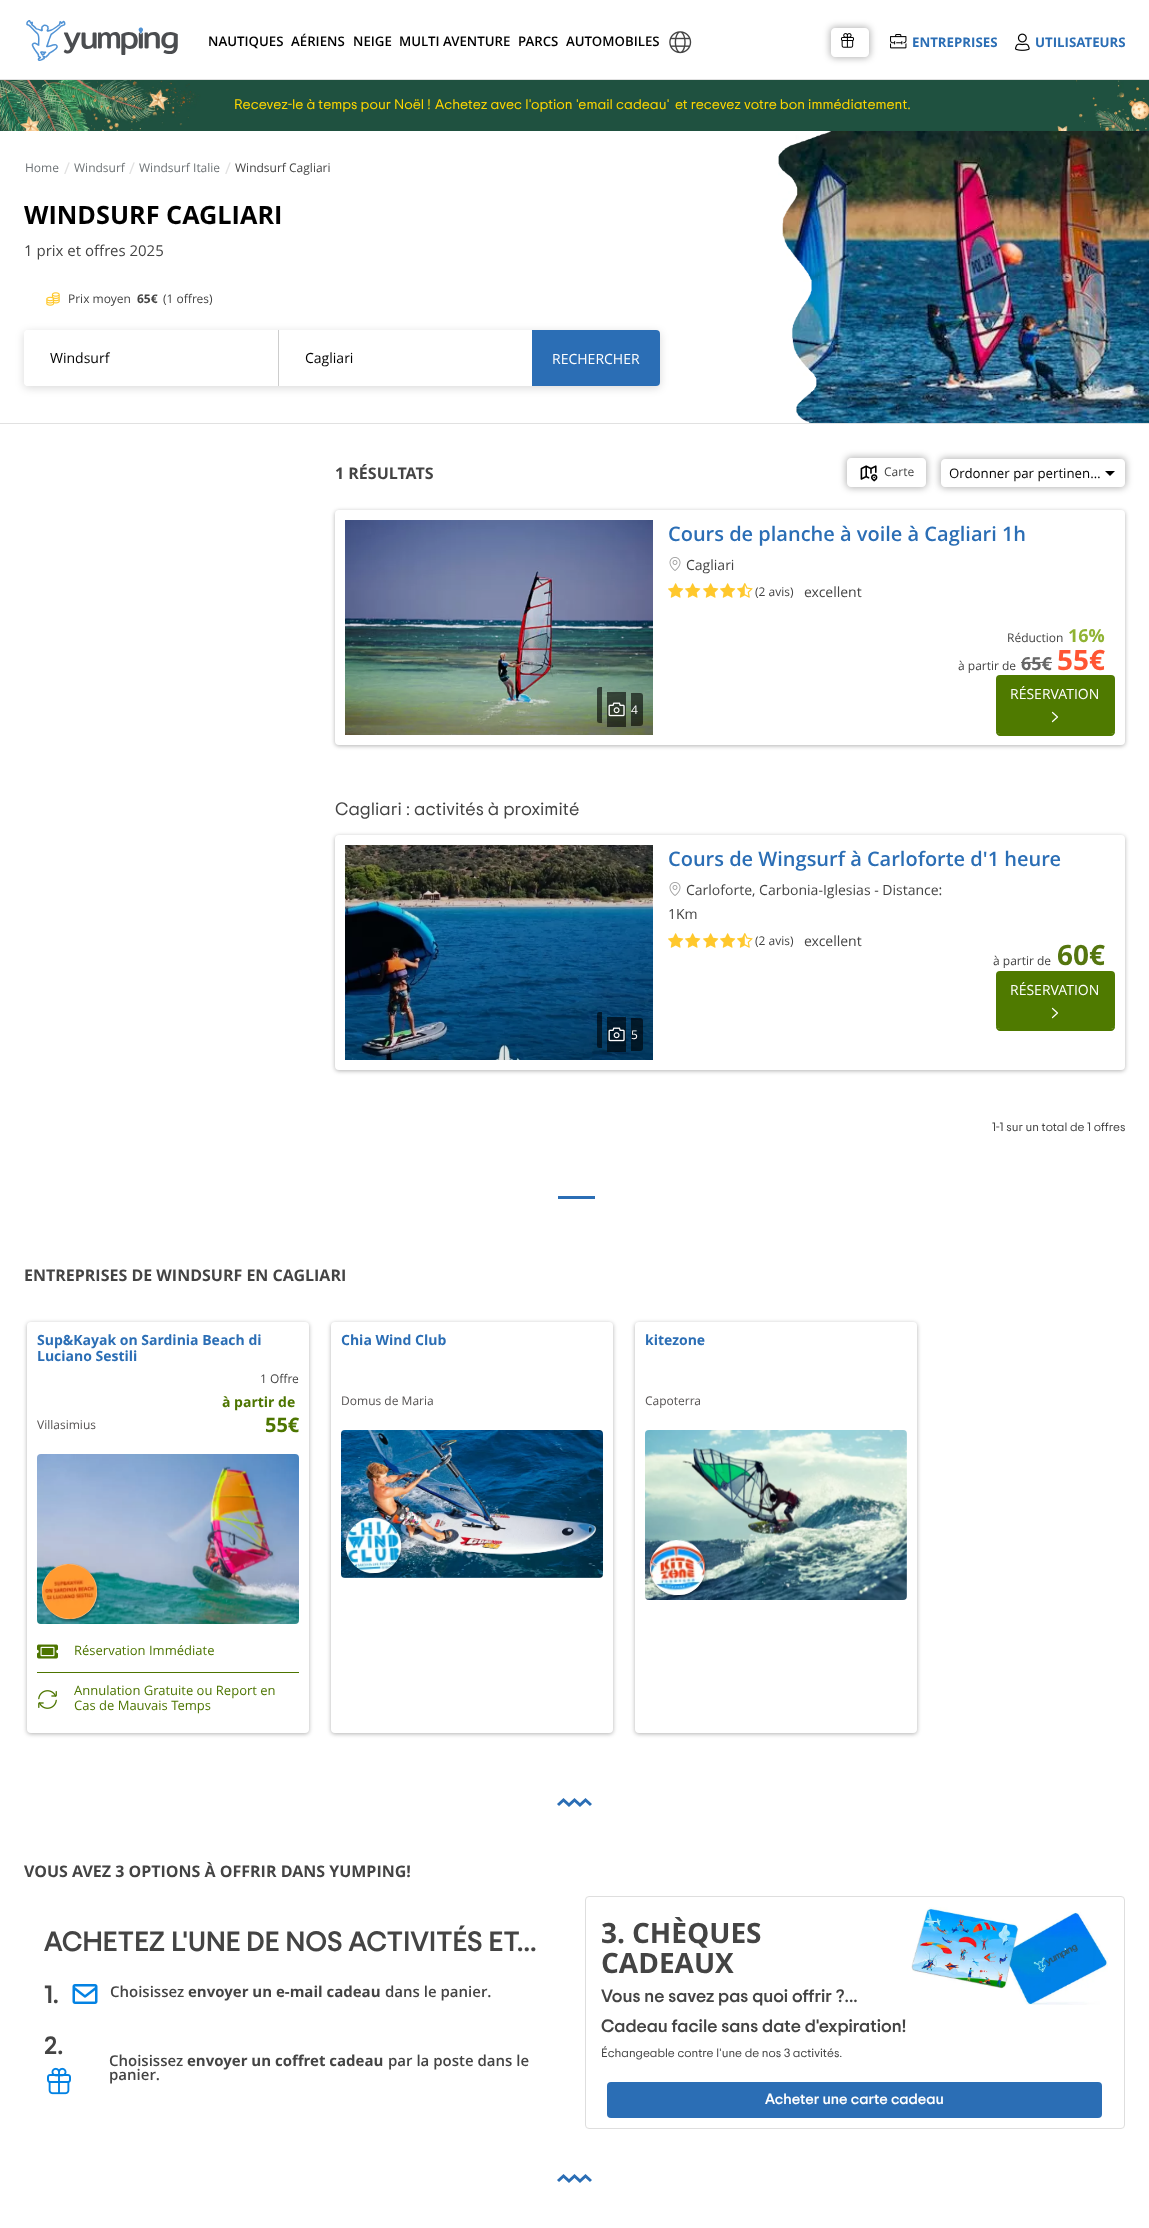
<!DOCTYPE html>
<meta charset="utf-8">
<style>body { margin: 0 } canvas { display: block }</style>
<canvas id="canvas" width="1149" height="2228"></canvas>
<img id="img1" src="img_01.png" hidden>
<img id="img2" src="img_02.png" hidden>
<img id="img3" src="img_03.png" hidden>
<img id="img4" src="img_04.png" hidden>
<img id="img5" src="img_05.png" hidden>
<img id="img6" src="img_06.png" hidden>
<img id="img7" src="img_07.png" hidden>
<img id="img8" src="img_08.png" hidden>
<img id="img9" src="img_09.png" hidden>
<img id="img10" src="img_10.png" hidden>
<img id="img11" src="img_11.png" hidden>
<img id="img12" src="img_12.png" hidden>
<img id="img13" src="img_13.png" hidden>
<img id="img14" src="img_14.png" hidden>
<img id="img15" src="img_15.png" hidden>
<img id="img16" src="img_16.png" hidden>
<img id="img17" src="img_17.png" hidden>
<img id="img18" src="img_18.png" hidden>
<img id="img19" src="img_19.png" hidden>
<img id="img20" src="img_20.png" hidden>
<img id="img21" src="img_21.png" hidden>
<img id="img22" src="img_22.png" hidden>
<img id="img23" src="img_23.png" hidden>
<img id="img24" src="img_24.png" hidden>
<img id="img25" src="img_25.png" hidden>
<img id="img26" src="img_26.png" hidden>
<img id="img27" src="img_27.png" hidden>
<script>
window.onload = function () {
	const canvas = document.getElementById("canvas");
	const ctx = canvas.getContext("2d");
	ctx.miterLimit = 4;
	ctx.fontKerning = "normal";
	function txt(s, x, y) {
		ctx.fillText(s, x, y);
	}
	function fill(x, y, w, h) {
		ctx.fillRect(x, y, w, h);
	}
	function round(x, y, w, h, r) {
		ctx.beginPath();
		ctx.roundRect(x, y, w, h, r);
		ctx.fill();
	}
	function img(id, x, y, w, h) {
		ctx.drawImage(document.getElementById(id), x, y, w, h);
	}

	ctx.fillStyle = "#FFFFFF";
	fill(0, 0, 1149, 2228);
	img("img1", 26, 20, 152, 41);
	img("img2", 669, 31, 23, 23);
	ctx.save();
	ctx.beginPath();
	ctx.moveTo(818, 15);
	ctx.lineTo(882, 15);
	ctx.lineTo(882, 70);
	ctx.lineTo(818, 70);
	ctx.closePath();
	ctx.moveTo(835, 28);
	ctx.lineTo(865, 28);
	ctx.bezierCurveTo(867, 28, 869, 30, 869, 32);
	ctx.lineTo(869, 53);
	ctx.bezierCurveTo(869, 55, 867, 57, 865, 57);
	ctx.lineTo(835, 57);
	ctx.bezierCurveTo(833, 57, 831, 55, 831, 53);
	ctx.lineTo(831, 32);
	ctx.bezierCurveTo(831, 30, 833, 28, 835, 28);
	ctx.closePath();
	ctx.clip("evenodd");
	ctx.fillStyle = "rgba(0, 0, 0, 0.3)";
	ctx.filter = "blur(3.5px)";
	ctx.beginPath();
	ctx.roundRect(830, 27, 40, 31, 5);
	ctx.fill();
	ctx.filter = "none";
	ctx.restore();
	img("img3", 841, 33, 13, 15);
	img("img4", 890, 34, 17, 15);
	img("img5", 1015, 33, 15, 18);
	ctx.fillStyle = "#E1E1E1";
	fill(0, 79, 1149, 1);
	img("img6", 0, 80, 1149, 51);
	img("img7", 778, 131, 371, 292);
	img("img8", 46, 292, 14, 14);
	ctx.save();
	ctx.beginPath();
	ctx.moveTo(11, 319);
	ctx.lineTo(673, 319);
	ctx.lineTo(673, 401);
	ctx.lineTo(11, 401);
	ctx.closePath();
	ctx.moveTo(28, 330);
	ctx.lineTo(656, 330);
	ctx.bezierCurveTo(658, 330, 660, 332, 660, 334);
	ctx.lineTo(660, 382);
	ctx.bezierCurveTo(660, 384, 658, 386, 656, 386);
	ctx.lineTo(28, 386);
	ctx.bezierCurveTo(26, 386, 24, 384, 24, 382);
	ctx.lineTo(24, 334);
	ctx.bezierCurveTo(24, 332, 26, 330, 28, 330);
	ctx.closePath();
	ctx.clip("evenodd");
	ctx.fillStyle = "rgba(0, 0, 0, 0.15)";
	ctx.filter = "blur(4px)";
	ctx.beginPath();
	ctx.roundRect(24, 332, 636, 56, 4);
	ctx.fill();
	ctx.filter = "none";
	ctx.restore();
	ctx.fillStyle = "#FFFFFF";
	ctx.beginPath();
	ctx.roundRect(24, 330, 254, 56, [4, 0, 0, 4]);
	ctx.fill();
	ctx.fillStyle = "#CDCDCD";
	fill(278, 330, 1, 56);
	ctx.fillStyle = "#2B6EB5";
	ctx.beginPath();
	ctx.roundRect(532, 330, 128, 56, [0, 4, 4, 0]);
	ctx.fill();
	ctx.fillStyle = "#E1E1E1";
	fill(0, 423, 1149, 1);
	ctx.save();
	ctx.beginPath();
	ctx.moveTo(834, 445);
	ctx.lineTo(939, 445);
	ctx.lineTo(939, 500);
	ctx.lineTo(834, 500);
	ctx.closePath();
	ctx.moveTo(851, 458);
	ctx.lineTo(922, 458);
	ctx.bezierCurveTo(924, 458, 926, 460, 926, 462);
	ctx.lineTo(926, 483);
	ctx.bezierCurveTo(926, 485, 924, 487, 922, 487);
	ctx.lineTo(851, 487);
	ctx.bezierCurveTo(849, 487, 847, 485, 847, 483);
	ctx.lineTo(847, 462);
	ctx.bezierCurveTo(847, 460, 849, 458, 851, 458);
	ctx.closePath();
	ctx.clip("evenodd");
	ctx.fillStyle = "rgba(0, 0, 0, 0.3)";
	ctx.filter = "blur(3.5px)";
	ctx.beginPath();
	ctx.roundRect(846, 457, 81, 31, 5);
	ctx.fill();
	ctx.filter = "none";
	ctx.restore();
	img("img9", 860, 465, 18, 17);
	ctx.save();
	ctx.beginPath();
	ctx.moveTo(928, 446);
	ctx.lineTo(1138, 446);
	ctx.lineTo(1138, 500);
	ctx.lineTo(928, 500);
	ctx.closePath();
	ctx.moveTo(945, 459);
	ctx.lineTo(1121, 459);
	ctx.bezierCurveTo(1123, 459, 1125, 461, 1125, 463);
	ctx.lineTo(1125, 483);
	ctx.bezierCurveTo(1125, 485, 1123, 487, 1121, 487);
	ctx.lineTo(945, 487);
	ctx.bezierCurveTo(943, 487, 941, 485, 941, 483);
	ctx.lineTo(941, 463);
	ctx.bezierCurveTo(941, 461, 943, 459, 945, 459);
	ctx.closePath();
	ctx.clip("evenodd");
	ctx.fillStyle = "rgba(0, 0, 0, 0.3)";
	ctx.filter = "blur(3.5px)";
	ctx.beginPath();
	ctx.roundRect(940, 458, 186, 30, 5);
	ctx.fill();
	ctx.filter = "none";
	ctx.restore();
	ctx.fillStyle = "#000000";
	ctx.beginPath();
	ctx.moveTo(1105, 471);
	ctx.lineTo(1110, 476);
	ctx.lineTo(1115, 471);
	ctx.closePath();
	ctx.fill();
	ctx.fillStyle = "rgba(0, 0, 0, 0.3)";
	ctx.filter = "blur(2px)";
	ctx.beginPath();
	ctx.roundRect(335, 511, 790, 235, 4);
	ctx.fill();
	ctx.filter = "none";
	ctx.fillStyle = "#FFFFFF";
	round(335, 510, 790, 235, 4);
	img("img10", 669, 557, 12, 14);
	img("img11", 668, 583, 16, 15);
	img("img11", 685, 583, 16, 15);
	img("img11", 703, 583, 16, 15);
	img("img11", 720, 583, 16, 15);
	img("img12", 737, 582, 16, 16);
	ctx.fillStyle = "#666666";
	fill(1021, 662, 31, 1);
	ctx.fillStyle = "#4F7A00";
	ctx.beginPath();
	ctx.moveTo(996, 730);
	ctx.lineTo(996, 732);
	ctx.bezierCurveTo(996, 734, 998, 736, 1000, 736);
	ctx.lineTo(1111, 736);
	ctx.bezierCurveTo(1113, 736, 1115, 734, 1115, 732);
	ctx.lineTo(1115, 730);
	ctx.bezierCurveTo(1115, 732, 1113, 734, 1111, 734);
	ctx.lineTo(1000, 734);
	ctx.bezierCurveTo(998, 734, 996, 732, 996, 730);
	ctx.closePath();
	ctx.fill();
	round(996, 675, 119, 59, 4);
	ctx.beginPath();
	ctx.moveTo(1052.5, 712.5);
	ctx.lineTo(1057.5, 717);
	ctx.lineTo(1052.5, 721.5);
	ctx.strokeStyle = "#FFFFFF";
	ctx.lineWidth = 1.2;
	ctx.lineCap = "round";
	ctx.lineJoin = "round";
	ctx.stroke();
	img("img13", 345, 520, 308, 215);
	ctx.fillStyle = "rgba(0, 0, 0, 0.6)";
	fill(607, 692, 19, 35);
	img("img14", 608, 702, 17, 15);
	ctx.beginPath();
	ctx.roundRect(597, 687, 5, 36, [2.5, 0, 0, 2.5]);
	ctx.fill();
	ctx.beginPath();
	ctx.roundRect(631, 693, 12, 33, [0, 3, 3, 0]);
	ctx.fill();
	ctx.fillStyle = "rgba(0, 0, 0, 0.3)";
	ctx.filter = "blur(2px)";
	ctx.beginPath();
	ctx.roundRect(335, 836, 790, 235, 4);
	ctx.fill();
	ctx.filter = "none";
	ctx.fillStyle = "#FFFFFF";
	round(335, 835, 790, 235, 4);
	img("img10", 669, 882, 12, 14);
	img("img11", 668, 933, 16, 15);
	img("img11", 685, 933, 16, 15);
	img("img11", 703, 933, 16, 15);
	img("img11", 720, 933, 16, 15);
	img("img12", 737, 932, 16, 16);
	ctx.fillStyle = "#4F7A00";
	ctx.beginPath();
	ctx.moveTo(996, 1025);
	ctx.lineTo(996, 1027);
	ctx.bezierCurveTo(996, 1029, 998, 1031, 1000, 1031);
	ctx.lineTo(1111, 1031);
	ctx.bezierCurveTo(1113, 1031, 1115, 1029, 1115, 1027);
	ctx.lineTo(1115, 1025);
	ctx.bezierCurveTo(1115, 1027, 1113, 1029, 1111, 1029);
	ctx.lineTo(1000, 1029);
	ctx.bezierCurveTo(998, 1029, 996, 1027, 996, 1025);
	ctx.closePath();
	ctx.fill();
	round(996, 971, 119, 58, 4);
	ctx.beginPath();
	ctx.moveTo(1052.5, 1008.5);
	ctx.lineTo(1057.5, 1013);
	ctx.lineTo(1052.5, 1017.5);
	ctx.stroke();
	img("img15", 345, 845, 308, 215);
	ctx.fillStyle = "rgba(0, 0, 0, 0.6)";
	fill(607, 1017, 19, 35);
	img("img16", 608, 1027, 17, 15);
	ctx.beginPath();
	ctx.roundRect(597, 1012, 5, 36, [2.5, 0, 0, 2.5]);
	ctx.fill();
	ctx.beginPath();
	ctx.roundRect(631, 1018, 12, 33, [0, 3, 3, 0]);
	ctx.fill();
	ctx.fillStyle = "#2B6EB5";
	fill(558, 1196, 37, 3);
	ctx.fillStyle = "rgba(0, 0, 0, 0.3)";
	ctx.filter = "blur(2px)";
	ctx.beginPath();
	ctx.roundRect(27, 1323, 282, 411, 4);
	ctx.fill();
	ctx.filter = "none";
	ctx.fillStyle = "#FFFFFF";
	round(27, 1322, 282, 411, 4);
	img("img17", 37, 1454, 262, 170);
	ctx.fillStyle = "rgba(0, 0, 0, 0.35)";
	ctx.filter = "blur(1.5px)";
	ctx.beginPath();
	ctx.roundRect(43, 1566, 55, 55, 27.5);
	ctx.fill();
	ctx.filter = "none";
	ctx.fillStyle = "#F5F5F5";
	ctx.beginPath();
	ctx.moveTo(68, 1564);
	ctx.bezierCurveTo(83, 1564, 96, 1575, 97, 1590);
	ctx.bezierCurveTo(98, 1606, 86, 1618, 71, 1619);
	ctx.bezierCurveTo(56, 1620, 43, 1608, 42, 1593);
	ctx.bezierCurveTo(41, 1578, 53, 1565, 68, 1564);
	ctx.closePath();
	ctx.fill();
	img("img18", 41, 1563, 57, 57);
	ctx.fillStyle = "#4D7500";
	fill(37, 1672, 262, 1);
	img("img19", 37, 1644, 21, 15);
	img("img20", 38, 1690, 19, 19);
	ctx.fillStyle = "rgba(0, 0, 0, 0.3)";
	ctx.filter = "blur(2px)";
	ctx.beginPath();
	ctx.roundRect(331, 1323, 282, 411, 4);
	ctx.fill();
	ctx.filter = "none";
	ctx.fillStyle = "#FFFFFF";
	round(331, 1322, 282, 411, 4);
	img("img21", 341, 1430, 262, 148);
	ctx.fillStyle = "rgba(0, 0, 0, 0.35)";
	ctx.filter = "blur(1.5px)";
	ctx.beginPath();
	ctx.roundRect(347, 1519, 55, 55, 27.5);
	ctx.fill();
	ctx.filter = "none";
	ctx.fillStyle = "#F5F5F5";
	ctx.beginPath();
	ctx.moveTo(372, 1518);
	ctx.bezierCurveTo(387, 1517, 400, 1529, 401, 1544);
	ctx.bezierCurveTo(402, 1559, 390, 1572, 375, 1573);
	ctx.bezierCurveTo(360, 1574, 347, 1562, 346, 1547);
	ctx.bezierCurveTo(345, 1532, 357, 1519, 372, 1518);
	ctx.closePath();
	ctx.fill();
	img("img22", 345, 1517, 57, 57);
	ctx.fillStyle = "rgba(0, 0, 0, 0.3)";
	ctx.filter = "blur(2px)";
	ctx.beginPath();
	ctx.roundRect(635, 1323, 282, 411, 4);
	ctx.fill();
	ctx.filter = "none";
	ctx.fillStyle = "#FFFFFF";
	round(635, 1322, 282, 411, 4);
	img("img23", 645, 1430, 262, 170);
	ctx.fillStyle = "rgba(0, 0, 0, 0.35)";
	ctx.filter = "blur(1.5px)";
	ctx.beginPath();
	ctx.roundRect(651, 1542, 55, 55, 27.5);
	ctx.fill();
	ctx.filter = "none";
	ctx.fillStyle = "#F5F5F5";
	ctx.beginPath();
	ctx.moveTo(676, 1541);
	ctx.bezierCurveTo(691, 1540, 704, 1551, 705, 1567);
	ctx.bezierCurveTo(706, 1582, 694, 1595, 679, 1595);
	ctx.bezierCurveTo(664, 1596, 651, 1585, 650, 1569);
	ctx.bezierCurveTo(649, 1554, 661, 1541, 676, 1541);
	ctx.closePath();
	ctx.fill();
	img("img24", 649, 1539, 57, 57);
	ctx.beginPath();
	ctx.moveTo(558, 1805);
	ctx.lineTo(563.5, 1800);
	ctx.lineTo(569, 1805);
	ctx.lineTo(574.5, 1800);
	ctx.lineTo(580, 1805);
	ctx.lineTo(585.5, 1800);
	ctx.lineTo(591, 1805);
	ctx.strokeStyle = "#2B6EB5";
	ctx.lineWidth = 3;
	ctx.lineCap = "butt";
	ctx.lineJoin = "miter";
	ctx.stroke();
	img("img25", 72, 1984, 26, 20);
	img("img26", 47, 2067, 24, 28);
	ctx.beginPath();
	ctx.roundRect(585.5, 1896.5, 539, 232, 3.5);
	ctx.strokeStyle = "#DEDEDE";
	ctx.lineWidth = 1;
	ctx.stroke();
	img("img27", 911, 1907, 197, 98);
	ctx.fillStyle = "#2B6EB5";
	round(607, 2082, 495, 36, 4);
	ctx.beginPath();
	ctx.moveTo(558, 2181);
	ctx.lineTo(563.5, 2176);
	ctx.lineTo(569, 2181);
	ctx.lineTo(574.5, 2176);
	ctx.lineTo(580, 2181);
	ctx.lineTo(585.5, 2176);
	ctx.lineTo(591, 2181);
	ctx.strokeStyle = "#2B6EB5";
	ctx.lineWidth = 3;
	ctx.stroke();
	ctx.font = "600 13.25px Open Sans";
	ctx.fillStyle = "#000000";
	txt("NAUTIQUES", 208, 46);
	txt("AÉRIENS", 291, 46);
	txt("NEIGE", 353, 46);
	txt("MULTI AVENTURE", 399, 46);
	txt("PARCS", 518, 46);
	txt("AUTOMOBILES", 566, 46);
	ctx.font = "bold 13.25px Open Sans";
	ctx.fillStyle = "#2B6EB5";
	txt("ENTREPRISES", 912, 47);
	txt("UTILISATEURS", 1035, 47);
	ctx.font = "14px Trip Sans";
	ctx.fillStyle = "#FFD700";
	txt("Recevez-le à temps pour Noël !", 234, 109);
	txt("Achetez avec l'option 'email cadeau'", 435, 109);
	txt("et recevez votre bon immédiatement.", 675, 109);
	ctx.font = "12px Open Sans";
	ctx.fillStyle = "#6F7477";
	txt("Home", 25, 172);
	ctx.font = "16px Open Sans";
	ctx.fillStyle = "#E1E1E1";
	txt("/", 64, 174);
	ctx.font = "12px Open Sans";
	ctx.fillStyle = "#6F7477";
	txt("Windsurf", 74, 172);
	ctx.font = "16px Open Sans";
	ctx.fillStyle = "#E1E1E1";
	txt("/", 129, 174);
	ctx.font = "12px Open Sans";
	ctx.fillStyle = "#6F7477";
	txt("Windsurf Italie", 139, 172);
	ctx.font = "16px Open Sans";
	ctx.fillStyle = "#E1E1E1";
	txt("/", 225, 174);
	ctx.font = "12px Open Sans";
	ctx.fillStyle = "#444444";
	txt("Windsurf Cagliari", 235, 172);
	ctx.font = "bold 25.25px Open Sans";
	ctx.fillStyle = "#000000";
	txt("WINDSURF CAGLIARI", 24, 224);
	ctx.font = "15px Open Sans";
	ctx.fillStyle = "#444444";
	txt("1 prix et offres 2025", 24, 256);
	ctx.font = "12px Open Sans";
	txt("Prix moyen", 68, 303);
	ctx.font = "bold 12px Open Sans";
	txt("65€", 137, 303);
	ctx.font = "12px Open Sans";
	txt("(1 offres)", 163, 303);
	ctx.font = "14px Open Sans";
	ctx.fillStyle = "#000000";
	txt("Windsurf", 50, 363);
	txt("Cagliari", 305, 363);
	ctx.fillStyle = "#FFFFFF";
	txt("RECHERCHER", 552, 364);
	ctx.font = "bold 16px Open Sans";
	ctx.fillStyle = "#444444";
	txt("1 RÉSULTATS", 335, 479);
	ctx.font = "12px Open Sans";
	txt("Carte", 884, 476);
	ctx.font = "13.25px Open Sans";
	ctx.fillStyle = "#000000";
	txt("Ordonner par pertinen…", 949, 478);
	ctx.font = "600 20px Open Sans";
	ctx.fillStyle = "#2B6EB5";
	txt("Cours de planche à voile à Cagliari 1h", 668, 541);
	ctx.font = "14px Open Sans";
	ctx.fillStyle = "#444444";
	txt("Cagliari", 686, 570);
	ctx.font = "12px Open Sans";
	txt("(2 avis)", 755, 596);
	ctx.font = "14px Open Sans";
	txt("excellent", 804, 597);
	ctx.font = "12px Open Sans";
	txt("Réduction", 1007, 642);
	ctx.font = "bold 18px Open Sans";
	ctx.fillStyle = "#90B333";
	txt("16%", 1068, 642);
	ctx.font = "12px Open Sans";
	ctx.fillStyle = "#444444";
	txt("à partir de", 958, 670);
	ctx.font = "bold 18px Open Sans";
	ctx.fillStyle = "#666666";
	txt("65€", 1021, 670);
	ctx.font = "bold 28px Open Sans";
	ctx.fillStyle = "#FF5533";
	txt("55€", 1057, 670);
	ctx.font = "14px Open Sans";
	ctx.fillStyle = "#FFFFFF";
	txt("RÉSERVATION", 1010, 699);
	ctx.font = "12px Open Sans";
	txt("4", 631, 714);
	ctx.font = "18px Trip Sans";
	ctx.fillStyle = "#444444";
	txt("Cagliari : activités à proximité", 335, 815);
	ctx.font = "600 20px Open Sans";
	ctx.fillStyle = "#2B6EB5";
	txt("Cours de Wingsurf à Carloforte d'1 heure", 668, 866);
	ctx.font = "14px Open Sans";
	ctx.fillStyle = "#444444";
	txt("Carloforte, Carbonia-Iglesias - Distance:", 686, 895);
	txt("1Km", 668, 919);
	ctx.font = "12px Open Sans";
	txt("(2 avis)", 755, 945);
	ctx.font = "14px Open Sans";
	txt("excellent", 804, 946);
	ctx.font = "12px Open Sans";
	txt("à partir de", 993, 965);
	ctx.font = "bold 28px Open Sans";
	ctx.fillStyle = "#55760F";
	txt("60€", 1057, 965);
	ctx.font = "14px Open Sans";
	ctx.fillStyle = "#FFFFFF";
	txt("RÉSERVATION", 1010, 995);
	ctx.font = "12px Open Sans";
	txt("5", 631, 1039);
	ctx.font = "12px Trip Sans";
	ctx.fillStyle = "#444444";
	txt("1-1 sur un total de 1 offres", 992, 1131);
	ctx.font = "bold 16px Open Sans";
	txt("ENTREPRISES DE WINDSURF EN CAGLIARI", 24, 1281);
	ctx.font = "bold 14px Open Sans";
	ctx.fillStyle = "#2B6EB5";
	txt("Sup&Kayak on Sardinia Beach di", 37, 1345);
	txt("Luciano Sestili", 37, 1361);
	ctx.font = "12px Open Sans";
	ctx.fillStyle = "#565353";
	txt("Villasimius", 37, 1429);
	ctx.fillStyle = "#444444";
	txt("1 Offre", 260, 1383);
	ctx.font = "bold 14px Open Sans";
	ctx.fillStyle = "#4D7500";
	txt("à partir de", 222, 1407);
	ctx.font = "bold 20px Open Sans";
	txt("55€", 265, 1432);
	ctx.font = "13px Open Sans";
	txt("Réservation Immédiate", 74, 1655);
	txt("Annulation Gratuite ou Report en", 74, 1695);
	txt("Cas de Mauvais Temps", 74, 1710);
	ctx.font = "bold 14px Open Sans";
	ctx.fillStyle = "#2B6EB5";
	txt("Chia Wind Club", 341, 1345);
	ctx.font = "12px Open Sans";
	ctx.fillStyle = "#565353";
	txt("Domus de Maria", 341, 1405);
	ctx.font = "bold 14px Open Sans";
	ctx.fillStyle = "#2B6EB5";
	txt("kitezone", 645, 1345);
	ctx.font = "12px Open Sans";
	ctx.fillStyle = "#565353";
	txt("Capoterra", 645, 1405);
	ctx.font = "bold 16px Open Sans";
	ctx.fillStyle = "#444444";
	txt("VOUS AVEZ 3 OPTIONS À OFFRIR DANS YUMPING!", 24, 1877);
	ctx.font = "500 28px Trip Sans";
	txt("ACHETEZ L'UNE DE NOS ACTIVITÉS ET…", 44, 1951);
	ctx.font = "500 25px Trip Sans";
	txt("1.", 44, 2003);
	ctx.font = "600 15px Open Sans";
	txt("Choisissez", 110, 1997);
	ctx.font = "bold 15px Open Sans";
	txt("envoyer un e-mail cadeau", 188, 1997);
	ctx.font = "600 15px Open Sans";
	txt("dans le panier.", 385, 1997);
	ctx.font = "500 25px Trip Sans";
	txt("2.", 44, 2054);
	ctx.font = "600 15px Open Sans";
	txt("Choisissez", 109, 2066);
	ctx.font = "bold 15px Open Sans";
	txt("envoyer un coffret cadeau", 187, 2066);
	ctx.font = "600 15px Open Sans";
	txt("par la poste dans le", 388, 2066);
	txt("panier.", 109, 2080);
	ctx.font = "bold 28px Open Sans";
	txt("3.", 601, 1943);
	txt("CHÈQUES", 632, 1943);
	txt("CADEAUX", 601, 1973);
	ctx.font = "bold 18px Trip Sans";
	txt("Vous ne savez pas quoi offrir ?...", 601, 2002);
	txt("Cadeau facile sans date d'expiration!", 601, 2032);
	ctx.font = "12px 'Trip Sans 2'";
	txt("Échangeable contre l'une de nos 3 activités.", 601, 2057);
	ctx.font = "500 15px Trip Sans";
	ctx.fillStyle = "#FFFFFF";
	txt("Acheter une carte cadeau", 765, 2104);
};
</script>
